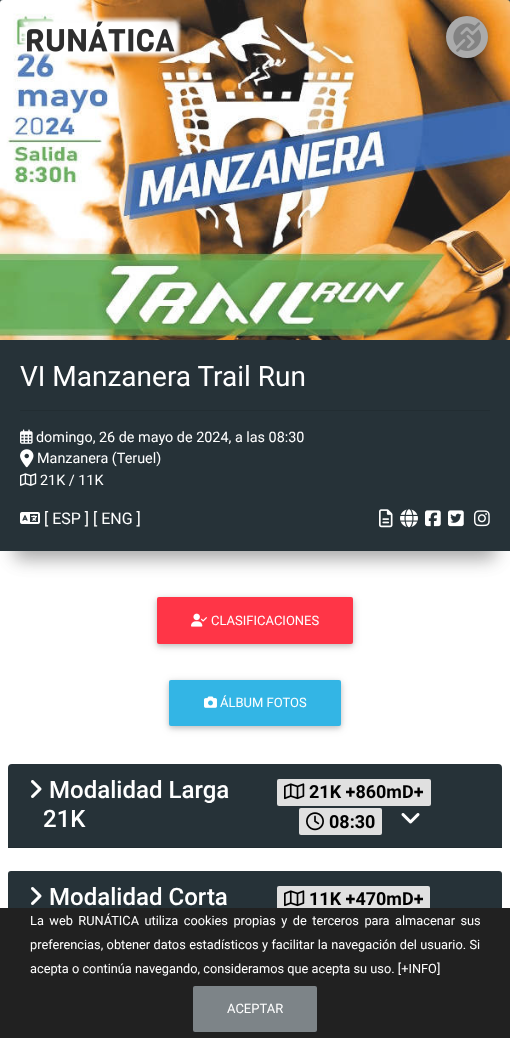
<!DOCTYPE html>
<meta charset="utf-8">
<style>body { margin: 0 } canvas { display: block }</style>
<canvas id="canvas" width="510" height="1038"></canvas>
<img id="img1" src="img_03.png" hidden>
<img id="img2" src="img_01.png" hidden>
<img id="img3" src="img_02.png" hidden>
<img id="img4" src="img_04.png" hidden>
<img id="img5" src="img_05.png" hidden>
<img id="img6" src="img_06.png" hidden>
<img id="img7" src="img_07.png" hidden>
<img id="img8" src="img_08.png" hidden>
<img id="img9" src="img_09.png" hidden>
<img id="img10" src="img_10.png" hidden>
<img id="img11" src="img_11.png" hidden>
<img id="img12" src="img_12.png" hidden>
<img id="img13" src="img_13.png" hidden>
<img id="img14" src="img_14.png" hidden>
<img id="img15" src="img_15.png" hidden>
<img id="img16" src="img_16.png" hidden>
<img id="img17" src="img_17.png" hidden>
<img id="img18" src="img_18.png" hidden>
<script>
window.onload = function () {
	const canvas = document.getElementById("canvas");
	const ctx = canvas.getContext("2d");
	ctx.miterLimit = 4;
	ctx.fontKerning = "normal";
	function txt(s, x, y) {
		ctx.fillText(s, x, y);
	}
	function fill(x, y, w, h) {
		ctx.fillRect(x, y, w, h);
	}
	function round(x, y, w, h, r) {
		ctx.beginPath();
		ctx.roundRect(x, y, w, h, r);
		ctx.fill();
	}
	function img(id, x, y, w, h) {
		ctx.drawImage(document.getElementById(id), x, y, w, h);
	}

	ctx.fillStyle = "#FFFFFF";
	fill(0, 0, 510, 1038);
	ctx.fillStyle = "rgba(0, 0, 0, 0.19)";
	ctx.filter = "blur(10px)";
	ctx.beginPath();
	ctx.roundRect(15, 6, 480, 551, 4);
	ctx.fill();
	ctx.filter = "none";
	ctx.fillStyle = "rgba(0, 0, 0, 0.2)";
	ctx.filter = "blur(8.5px)";
	ctx.beginPath();
	ctx.roundRect(15, 8, 480, 551, 4);
	ctx.fill();
	ctx.filter = "none";
	ctx.fillStyle = "#263238";
	fill(0, 0, 510, 3);
	img("img1", 0, 0, 510, 340);
	ctx.fillStyle = "rgba(255, 255, 255, 0.1)";
	fill(0, 0, 510, 340);
	img("img2", 18, 16, 164, 42);
	ctx.fillStyle = "rgba(0, 0, 0, 0.12)";
	ctx.filter = "blur(5px)";
	ctx.beginPath();
	ctx.roundRect(446, 18, 42, 42, 21);
	ctx.fill();
	ctx.filter = "none";
	ctx.fillStyle = "rgba(0, 0, 0, 0.16)";
	ctx.filter = "blur(2.5px)";
	ctx.beginPath();
	ctx.roundRect(446, 18, 42, 42, 21);
	ctx.fill();
	ctx.filter = "none";
	img("img3", 446, 16, 42, 42);
	ctx.fillStyle = "#263238";
	fill(0, 340, 510, 211);
	ctx.fillStyle = "#222D32";
	fill(20, 410, 470, 1);
	img("img4", 20, 429, 13, 15);
	img("img5", 20, 449, 14, 19);
	img("img6", 20, 473, 17, 13);
	img("img7", 20, 512, 20, 12);
	img("img8", 379, 509, 14, 19);
	img("img9", 400, 509, 18, 19);
	img("img10", 425, 510, 16, 17);
	img("img11", 448, 510, 16, 17);
	img("img12", 474, 510, 16, 17);
	ctx.fillStyle = "rgba(0, 0, 0, 0.12)";
	ctx.filter = "blur(5px)";
	ctx.beginPath();
	ctx.roundRect(157, 599, 196, 47, 2);
	ctx.fill();
	ctx.filter = "none";
	ctx.fillStyle = "rgba(0, 0, 0, 0.16)";
	ctx.filter = "blur(2.5px)";
	ctx.beginPath();
	ctx.roundRect(157, 599, 196, 47, 2);
	ctx.fill();
	ctx.filter = "none";
	ctx.fillStyle = "#FF3547";
	round(157, 597, 196, 47, 2);
	img("img13", 191, 613, 16, 14);
	ctx.fillStyle = "rgba(0, 0, 0, 0.12)";
	ctx.filter = "blur(5px)";
	ctx.beginPath();
	ctx.roundRect(169, 682, 172, 46, 2);
	ctx.fill();
	ctx.filter = "none";
	ctx.fillStyle = "rgba(0, 0, 0, 0.16)";
	ctx.filter = "blur(2.5px)";
	ctx.beginPath();
	ctx.roundRect(169, 682, 172, 46, 2);
	ctx.fill();
	ctx.filter = "none";
	ctx.fillStyle = "#33B5E5";
	round(169, 680, 172, 46, 2);
	img("img14", 204, 696, 13, 12);
	ctx.fillStyle = "#263238";
	ctx.beginPath();
	ctx.roundRect(8, 764, 494, 84, [4, 4, 0, 0]);
	ctx.fill();
	ctx.fillStyle = "#212C31";
	fill(8, 847, 494, 1);
	img("img15", 31, 780, 11, 18);
	ctx.fillStyle = "#E0E0E0";
	round(277, 779, 154, 27, 2);
	img("img16", 284, 783, 21, 17);
	round(299, 808, 83, 27, 2);
	img("img17", 306, 812, 18, 19);
	img("img18", 401, 813, 19, 11);
	ctx.fillStyle = "#263238";
	ctx.beginPath();
	ctx.roundRect(8, 871, 494, 84, [3, 3, 0, 0]);
	ctx.fill();
	img("img15", 31, 887, 11, 18);
	ctx.fillStyle = "#E0E0E0";
	round(277, 886, 153, 27, 2);
	img("img16", 284, 890, 21, 17);
	ctx.fillStyle = "#212121";
	fill(0, 908, 510, 130);
	ctx.fillStyle = "#7D8488";
	round(193, 986, 124, 46, 2);
	ctx.font = "28px Roboto";
	ctx.fillStyle = "#FFFFFF";
	txt("VI Manzanera Trail Run", 20, 386);
	ctx.font = "14.4px Roboto";
	txt("domingo, 26 de mayo de 2024, a las 08:30", 36, 442);
	txt("Manzanera (Teruel)", 37, 463);
	txt("21K / 11K", 40, 485);
	ctx.font = "16px Roboto";
	txt("[ ESP ] [ ENG ]", 44, 524);
	ctx.font = "13px Roboto";
	txt("CLASIFICACIONES", 211, 625);
	txt("ÁLBUM FOTOS", 220, 707);
	ctx.font = "500 24px Roboto";
	txt("Modalidad Larga", 49, 798);
	txt("21K", 43, 827);
	ctx.font = "bold 18px Roboto";
	ctx.fillStyle = "#000000";
	txt("21K +860mD+", 309, 798);
	txt("08:30", 329, 828);
	ctx.font = "500 24px Roboto";
	ctx.fillStyle = "#FFFFFF";
	txt("Modalidad Corta", 49, 905);
	ctx.font = "bold 18px Roboto";
	ctx.fillStyle = "#000000";
	txt("11K +470mD+", 309, 905);
	ctx.wordSpacing = "2.25px";
	ctx.font = "12.8px Roboto";
	ctx.fillStyle = "#FFFFFF";
	txt("La web RUNÁTICA utiliza cookies propias y de terceros para almacenar sus", 30, 925);
	ctx.wordSpacing = "0.25px";
	txt("preferencias, obtener datos estadísticos y facilitar la navegación del usuario. Si", 30, 949);
	ctx.wordSpacing = "0px";
	txt("acepta o continúa navegando, consideramos que acepta su uso. [+INFO]", 30, 973);
	ctx.font = "13px Roboto";
	txt("ACEPTAR", 227, 1013);
};
</script>
